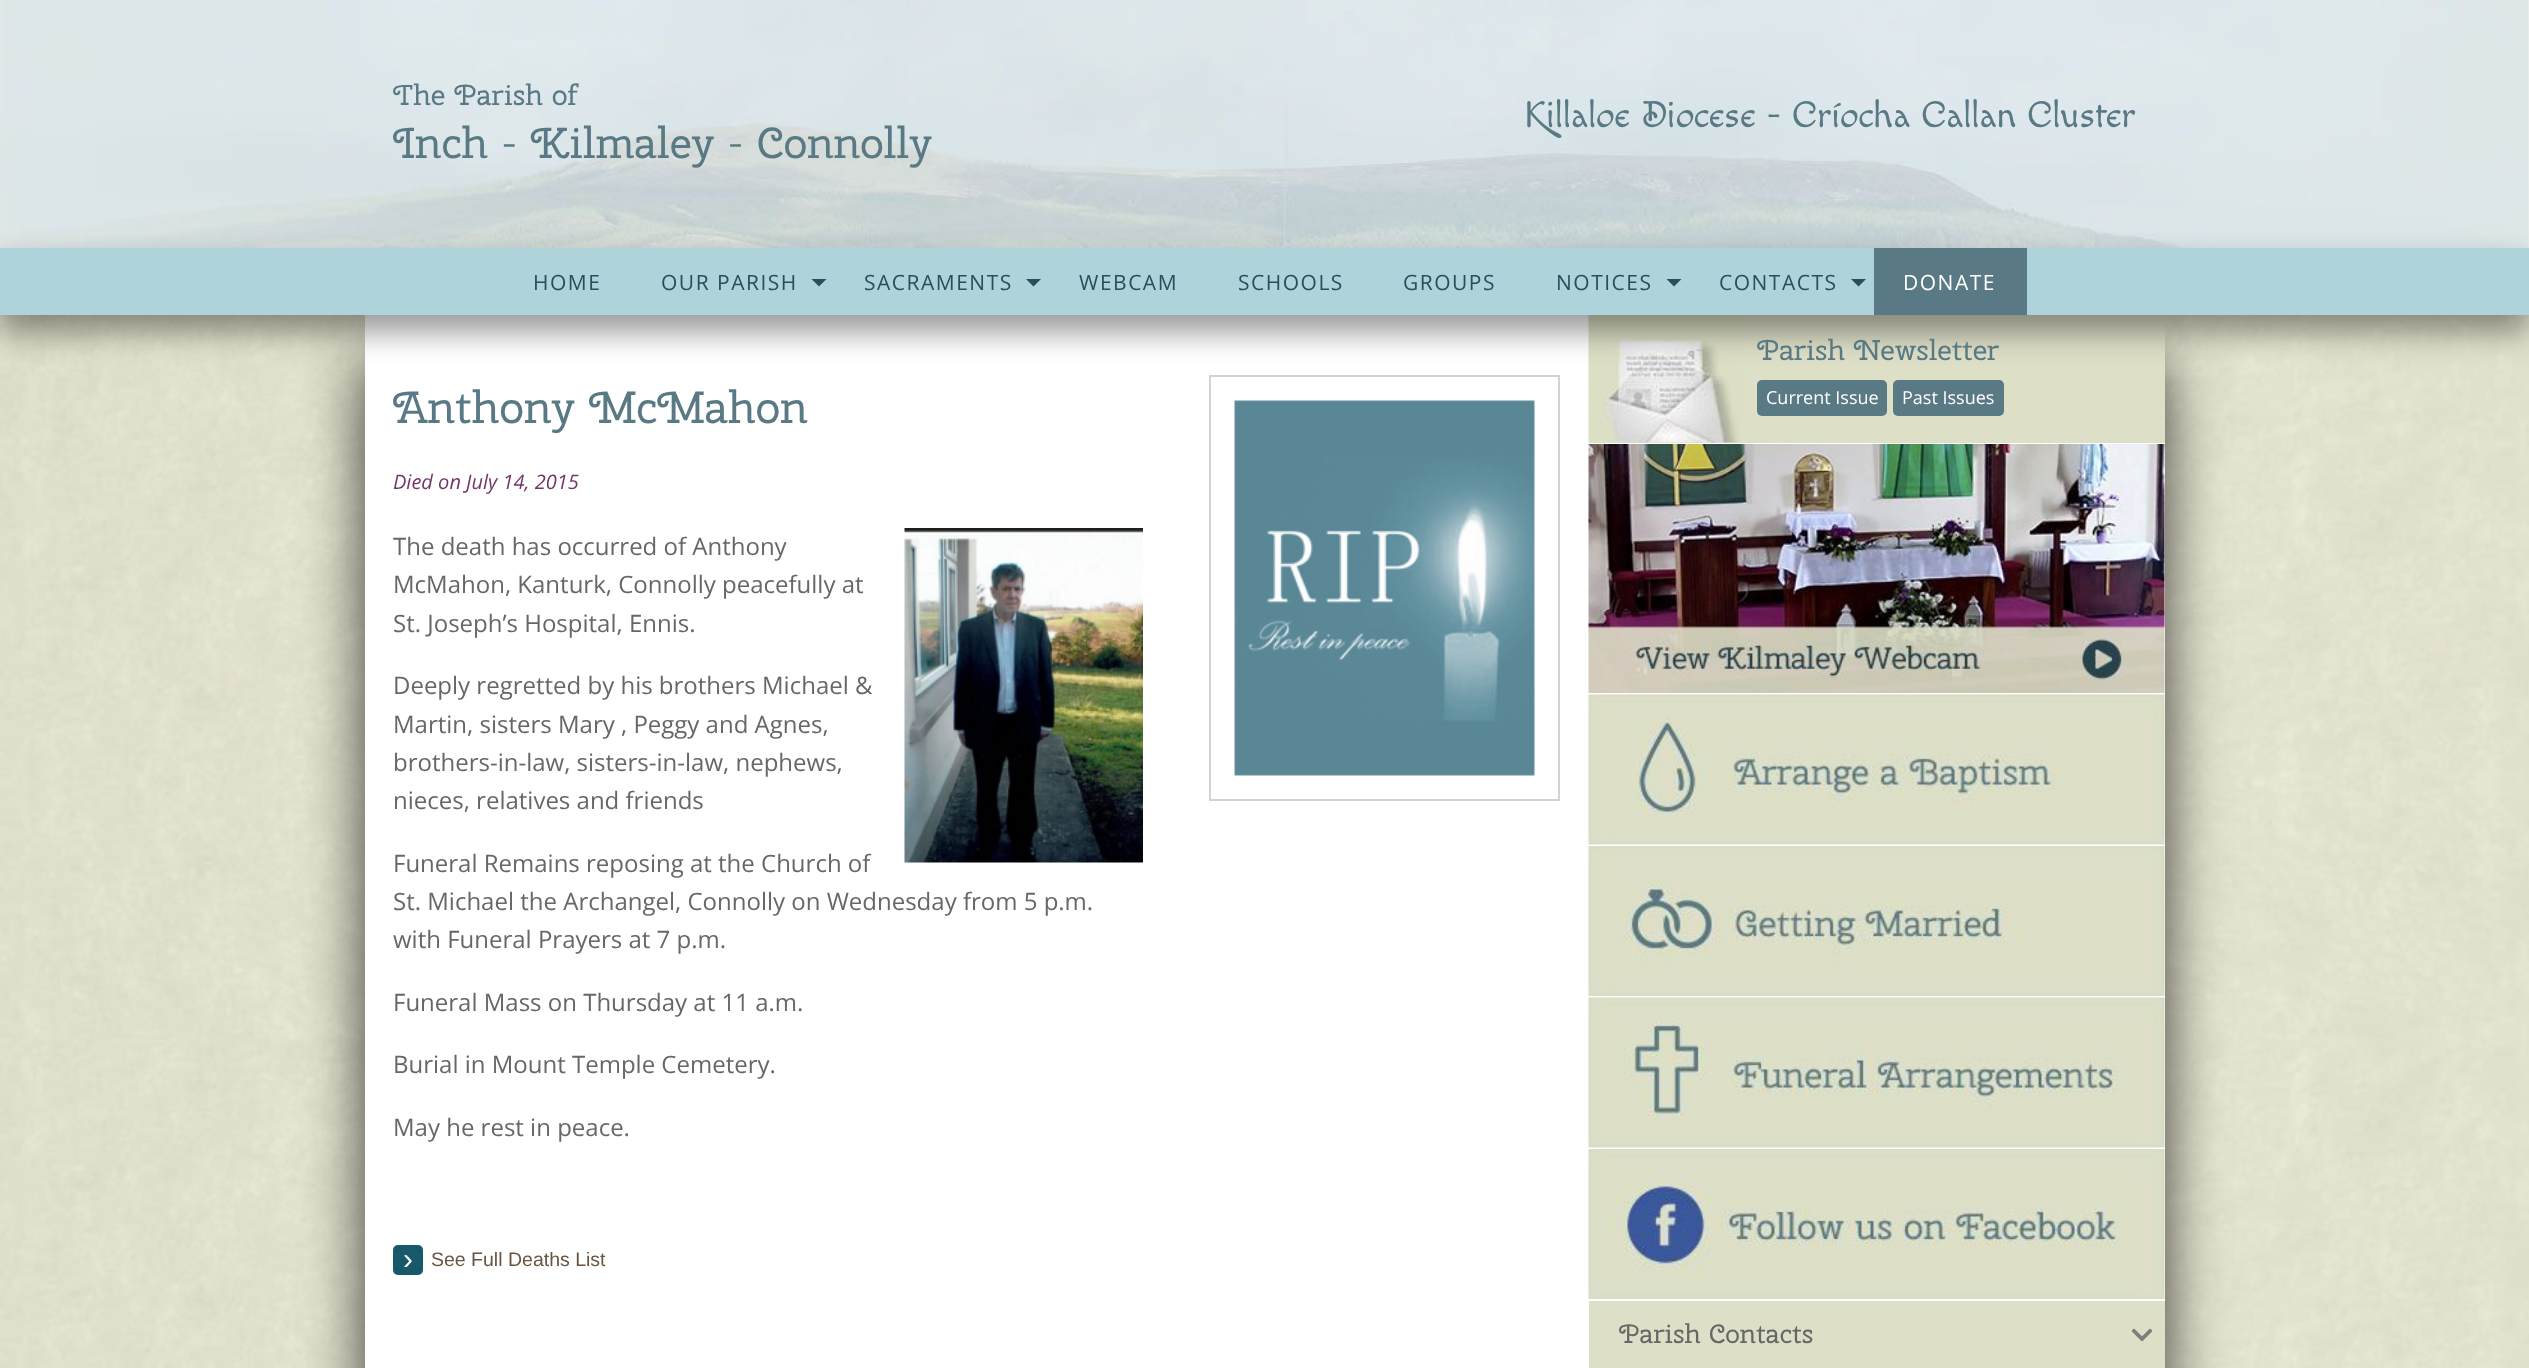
<!DOCTYPE html>
<meta charset="utf-8">
<style>body { margin: 0 } canvas { display: block }</style>
<canvas id="canvas" width="2529" height="1368"></canvas>
<img id="img1" src="img_01.png" hidden>
<img id="img2" src="img_02.png" hidden>
<img id="img3" src="img_05.png" hidden>
<img id="img4" src="img_03.png" hidden>
<img id="img5" src="img_04.png" hidden>
<img id="img6" src="img_06.png" hidden>
<img id="img7" src="img_07.png" hidden>
<img id="img8" src="img_08.png" hidden>
<img id="img9" src="img_09.png" hidden>
<img id="img10" src="img_10.png" hidden>
<img id="img11" src="img_11.png" hidden>
<script>
window.onload = function () {
	const canvas = document.getElementById("canvas");
	const ctx = canvas.getContext("2d");
	ctx.miterLimit = 4;
	ctx.fontKerning = "normal";
	function txt(s, x, y) {
		ctx.fillText(s, x, y);
	}
	function fill(x, y, w, h) {
		ctx.fillRect(x, y, w, h);
	}
	function round(x, y, w, h, r) {
		ctx.beginPath();
		ctx.roundRect(x, y, w, h, r);
		ctx.fill();
	}
	function img(id, x, y, w, h) {
		ctx.drawImage(document.getElementById(id), x, y, w, h);
	}

	ctx.fillStyle = "#FFFFFF";
	fill(0, 0, 2529, 1368);
	img("img1", 0, 0, 2529, 248);
	img("img2", 0, 315, 2529, 1053);
	ctx.fillStyle = "rgba(0, 0, 0, 0.75)";
	ctx.filter = "blur(30px)";
	ctx.beginPath();
	ctx.rect(365, 360, 1800, 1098);
	ctx.fill();
	ctx.filter = "none";
	ctx.fillStyle = "#FFFFFF";
	fill(365, 315, 1224, 1053);
	ctx.strokeStyle = "#D3D3D3";
	ctx.lineWidth = 2;
	ctx.strokeRect(1210, 376, 349, 424);
	ctx.fillStyle = "#DDDFC7";
	fill(1589, 315, 576, 128);
	img("img3", 1588, 315, 153, 128);
	ctx.fillStyle = "rgba(0, 0, 0, 0.4)";
	ctx.filter = "blur(15px)";
	ctx.beginPath();
	ctx.rect(0, 264, 2529, 68);
	ctx.fill();
	ctx.filter = "none";
	ctx.fillStyle = "#AED3DB";
	fill(0, 248, 2529, 67);
	ctx.fillStyle = "#284F5D";
	ctx.beginPath();
	ctx.moveTo(811.5, 279);
	ctx.lineTo(826.5, 279);
	ctx.lineTo(819, 286.5);
	ctx.closePath();
	ctx.fill();
	ctx.beginPath();
	ctx.moveTo(1026, 279);
	ctx.lineTo(1041, 279);
	ctx.lineTo(1033.5, 286.5);
	ctx.closePath();
	ctx.fill();
	ctx.beginPath();
	ctx.moveTo(1666.5, 279);
	ctx.lineTo(1681.5, 279);
	ctx.lineTo(1674, 286.5);
	ctx.closePath();
	ctx.fill();
	ctx.beginPath();
	ctx.moveTo(1851, 279);
	ctx.lineTo(1866, 279);
	ctx.lineTo(1858.5, 286.5);
	ctx.closePath();
	ctx.fill();
	ctx.fillStyle = "#597984";
	fill(1874, 248, 153, 67);
	img("img4", 1234, 400, 301, 376);
	img("img5", 904, 528, 239, 335);
	ctx.fillStyle = "#17596B";
	round(393, 1245, 30, 30, 5);
	ctx.fillStyle = "#FFFFFF";
	fill(1589, 443, 576, 858);
	ctx.fillStyle = "#597984";
	round(1757, 380, 130, 36, 5);
	round(1893, 380, 111, 36, 5);
	img("img6", 1588, 444, 577, 249);
	img("img7", 1588, 694, 577, 151);
	img("img8", 1588, 846, 577, 150);
	img("img9", 1588, 997, 577, 151);
	img("img10", 1588, 1149, 577, 150);
	ctx.fillStyle = "#DDDFC7";
	fill(1589, 1301, 576, 67);
	img("img11", 2131, 1328, 22, 14);
	ctx.font = "28.75px Cherry Swash";
	ctx.fillStyle = "#597984";
	txt("The Parish of", 393, 105);
	ctx.font = "43.25px Cherry Swash";
	txt("Inch - Kilmaley - Connolly", 393, 158);
	ctx.font = "37.5px Macondo Swash Caps";
	txt("Killaloe Diocese - Críocha Callan Cluster", 1525, 127);
	ctx.letterSpacing = "1.5px";
	ctx.font = "21px Open Sans";
	ctx.fillStyle = "#284F5D";
	txt("HOME", 533, 290);
	txt("OUR PARISH", 661, 290);
	txt("SACRAMENTS", 864, 290);
	txt("WEBCAM", 1079, 290);
	txt("SCHOOLS", 1238, 290);
	txt("GROUPS", 1403, 290);
	txt("NOTICES", 1556, 290);
	txt("CONTACTS", 1719, 290);
	ctx.fillStyle = "#FFFFFF";
	txt("DONATE", 1903, 290);
	ctx.letterSpacing = "0px";
	ctx.font = "45px Cherry Swash";
	ctx.fillStyle = "#597984";
	txt("Anthony McMahon", 393, 423);
	ctx.font = "italic 20px Open Sans";
	ctx.fillStyle = "#713768";
	txt("Died on July 14, 2015", 393, 489);
	ctx.font = "24px Open Sans";
	ctx.fillStyle = "#676767";
	txt("The death has occurred of Anthony", 393, 555);
	txt("McMahon, Kanturk, Connolly peacefully at", 393, 593);
	txt("St. Joseph’s Hospital, Ennis.", 393, 632);
	txt("Deeply regretted by his brothers Michael &", 393, 694);
	txt("Martin, sisters Mary , Peggy and Agnes,", 393, 733);
	txt("brothers-in-law, sisters-in-law, nephews,", 393, 771);
	txt("nieces, relatives and friends", 393, 809);
	txt("Funeral Remains reposing at the Church of", 393, 872);
	txt("St. Michael the Archangel, Connolly on Wednesday from 5 p.m.", 393, 910);
	txt("with Funeral Prayers at 7 p.m.", 393, 948);
	txt("Funeral Mass on Thursday at 11 a.m.", 393, 1011);
	txt("Burial in Mount Temple Cemetery.", 393, 1073);
	txt("May he rest in peace.", 393, 1136);
	ctx.font = "30px Liberation Sans";
	ctx.fillStyle = "#FCFBF3";
	txt("›", 403, 1269);
	ctx.font = "19.5px Liberation Sans";
	ctx.fillStyle = "#685541";
	txt("See Full Deaths List", 431, 1266);
	ctx.font = "28.5px Cherry Swash";
	ctx.fillStyle = "#597984";
	txt("Parish Newsletter", 1757, 360);
	ctx.font = "18px Open Sans";
	ctx.fillStyle = "#FFFFFF";
	txt("Current Issue", 1766, 404);
	txt("Past Issues", 1902, 404);
	ctx.font = "26.5px Cherry Swash";
	ctx.fillStyle = "#676767";
	txt("Parish Contacts", 1619, 1343);
};
</script>
